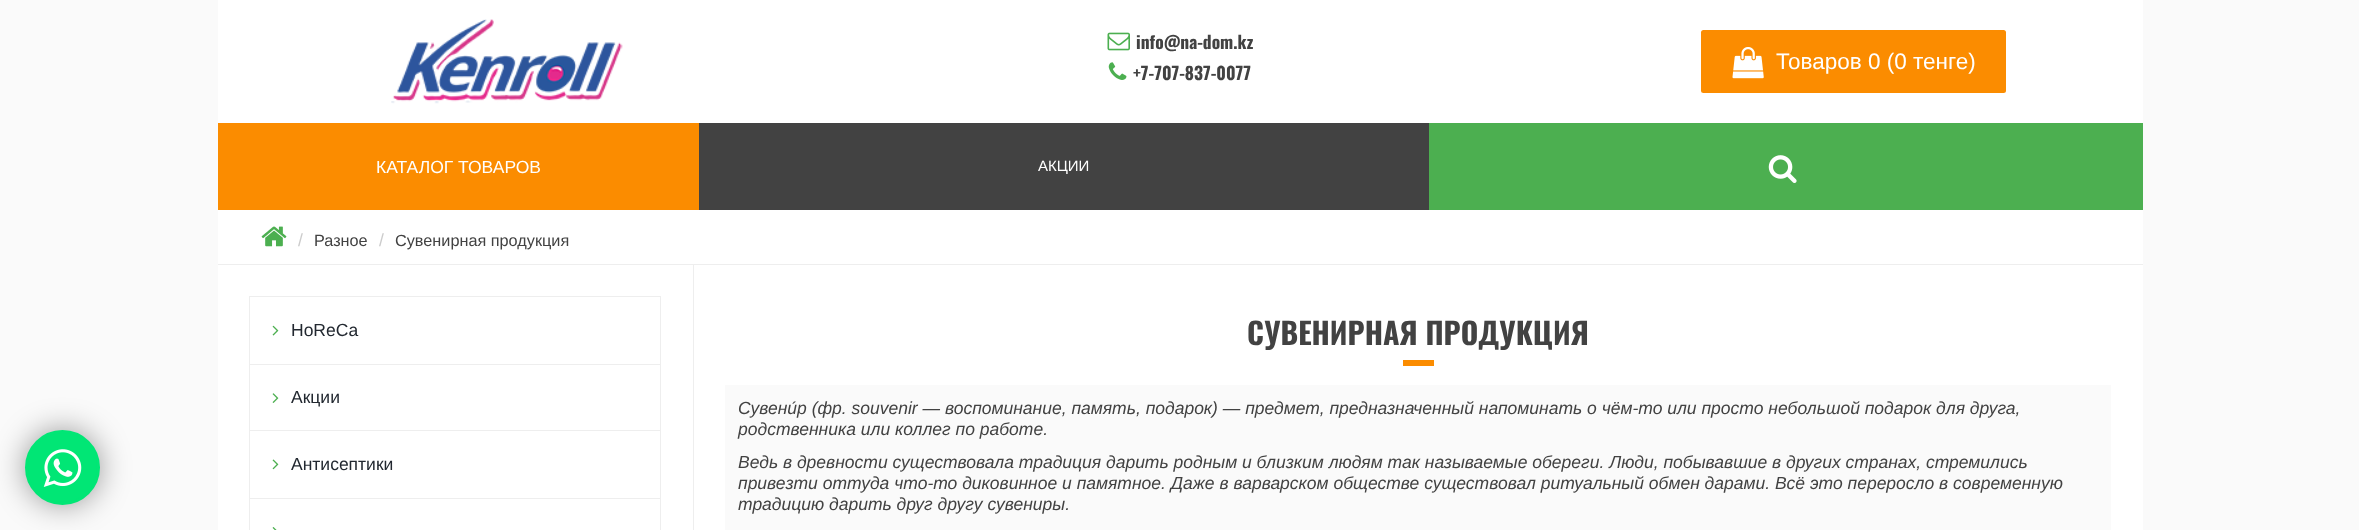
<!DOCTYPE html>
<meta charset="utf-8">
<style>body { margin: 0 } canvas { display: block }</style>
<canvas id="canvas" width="2359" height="530"></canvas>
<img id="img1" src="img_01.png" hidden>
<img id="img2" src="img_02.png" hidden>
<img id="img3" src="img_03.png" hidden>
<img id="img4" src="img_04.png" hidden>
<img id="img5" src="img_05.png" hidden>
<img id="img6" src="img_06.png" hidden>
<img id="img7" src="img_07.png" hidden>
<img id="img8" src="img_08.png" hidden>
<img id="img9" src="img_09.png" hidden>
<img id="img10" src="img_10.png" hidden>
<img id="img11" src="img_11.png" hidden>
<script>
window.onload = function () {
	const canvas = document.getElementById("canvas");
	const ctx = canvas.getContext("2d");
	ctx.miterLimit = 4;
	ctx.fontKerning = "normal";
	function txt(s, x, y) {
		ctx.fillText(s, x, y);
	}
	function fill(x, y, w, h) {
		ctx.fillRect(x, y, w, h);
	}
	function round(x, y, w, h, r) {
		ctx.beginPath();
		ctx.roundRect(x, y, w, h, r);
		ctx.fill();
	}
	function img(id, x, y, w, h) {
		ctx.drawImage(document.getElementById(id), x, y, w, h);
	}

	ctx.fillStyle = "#FAFAFA";
	fill(0, 0, 2359, 530);
	ctx.fillStyle = "rgba(0, 0, 0, 0.4)";
	ctx.filter = "blur(15.5px)";
	ctx.beginPath();
	ctx.roundRect(25, 430, 75, 75, 37.5);
	ctx.fill();
	ctx.filter = "none";
	ctx.fillStyle = "#01E675";
	ctx.beginPath();
	ctx.arc(62.5, 467.5, 36, 0, Math.PI * 2);
	ctx.fill();
	ctx.strokeStyle = "#01E675";
	ctx.lineWidth = 3;
	ctx.stroke();
	img("img1", 43, 449, 39, 38);
	ctx.fillStyle = "#FFFFFF";
	fill(218, 0, 1925, 123);
	img("img2", 391, 19, 232, 85);
	img("img3", 1107, 32, 23, 19);
	img("img4", 1108, 62, 19, 18);
	ctx.fillStyle = "#FB8C00";
	round(1701, 30, 305, 63, 2.5);
	img("img5", 1732, 47, 32, 32);
	ctx.fillStyle = "#424242";
	fill(699, 123, 730, 87);
	ctx.fillStyle = "#FB8C00";
	fill(218, 123, 481, 87);
	ctx.fillStyle = "#4CAF50";
	fill(1429, 123, 714, 87);
	img("img6", 1768, 155, 29, 28);
	ctx.fillStyle = "#FFFFFF";
	fill(218, 210, 1925, 54);
	img("img7", 261, 226, 26, 21);
	ctx.fillStyle = "#EEEEEE";
	fill(218, 264, 1925, 266);
	ctx.fillStyle = "#FFFFFF";
	fill(218, 265, 475, 265);
	ctx.strokeStyle = "#EEEEEE";
	ctx.lineWidth = 1;
	ctx.strokeRect(249.5, 296.5, 411, 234);
	ctx.fillStyle = "#EEEEEE";
	fill(250, 364, 410, 1);
	img("img8", 272, 325, 7, 11);
	fill(250, 430, 410, 1);
	img("img9", 272, 393, 7, 10);
	fill(250, 498, 410, 1);
	img("img10", 272, 459, 7, 11);
	img("img11", 272, 527, 5, 3);
	ctx.fillStyle = "#FFFFFF";
	fill(694, 265, 1449, 265);
	ctx.fillStyle = "#FB8C00";
	fill(1403, 360, 31, 6);
	ctx.fillStyle = "#FAFAFA";
	fill(725, 385, 1386, 145);
	ctx.font = "bold 17.5px Oswald";
	ctx.fillStyle = "#424242";
	txt("info@na-dom.kz", 1136, 49);
	txt("+7-707-837-0077", 1133, 80);
	ctx.font = "22.5px Liberation Sans";
	ctx.fillStyle = "#FFFFFF";
	txt("Товаров 0 (0 тенге)", 1776, 69);
	ctx.font = "17.5px Liberation Sans";
	txt("КАТАЛОГ ТОВАРОВ", 376, 173);
	ctx.font = "15px Liberation Sans";
	txt("АКЦИИ", 1038, 171);
	ctx.font = "17.5px Liberation Sans";
	ctx.fillStyle = "#CCCCCC";
	txt("/", 298, 246);
	ctx.font = "16.25px Liberation Sans";
	ctx.fillStyle = "#424242";
	txt("Разное", 314, 246);
	ctx.font = "17.5px Liberation Sans";
	ctx.fillStyle = "#CCCCCC";
	txt("/", 379, 246);
	ctx.font = "16.25px Liberation Sans";
	ctx.fillStyle = "#424242";
	txt("Сувенирная продукция", 395, 246);
	ctx.font = "17.5px Liberation Sans";
	ctx.fillStyle = "#222830";
	txt("HoReCa", 291, 336);
	txt("Акции", 291, 403);
	txt("Антисептики", 291, 470);
	ctx.font = "bold 30px Oswald";
	ctx.fillStyle = "#424242";
	txt("СУВЕНИРНАЯ ПРОДУКЦИЯ", 1247, 345);
	ctx.font = "italic 17.5px Liberation Sans";
	txt("Сувени́р (фр. souvenir — воспоминание, память, подарок) — предмет, предназначенный напоминать о чём-то или просто небольшой подарок для друга,", 738, 414);
	txt("родственника или коллег по работе.", 738, 435);
	txt("Ведь в древности существовала традиция дарить родным и близким людям так называемые обереги. Люди, побывавшие в других странах, стремились", 738, 468);
	txt("привезти оттуда что-то диковинное и памятное. Даже в варварском обществе существовал ритуальный обмен дарами. Всё это переросло в современную", 738, 489);
	txt("традицию дарить друг другу сувениры.", 738, 510);
};
</script>
